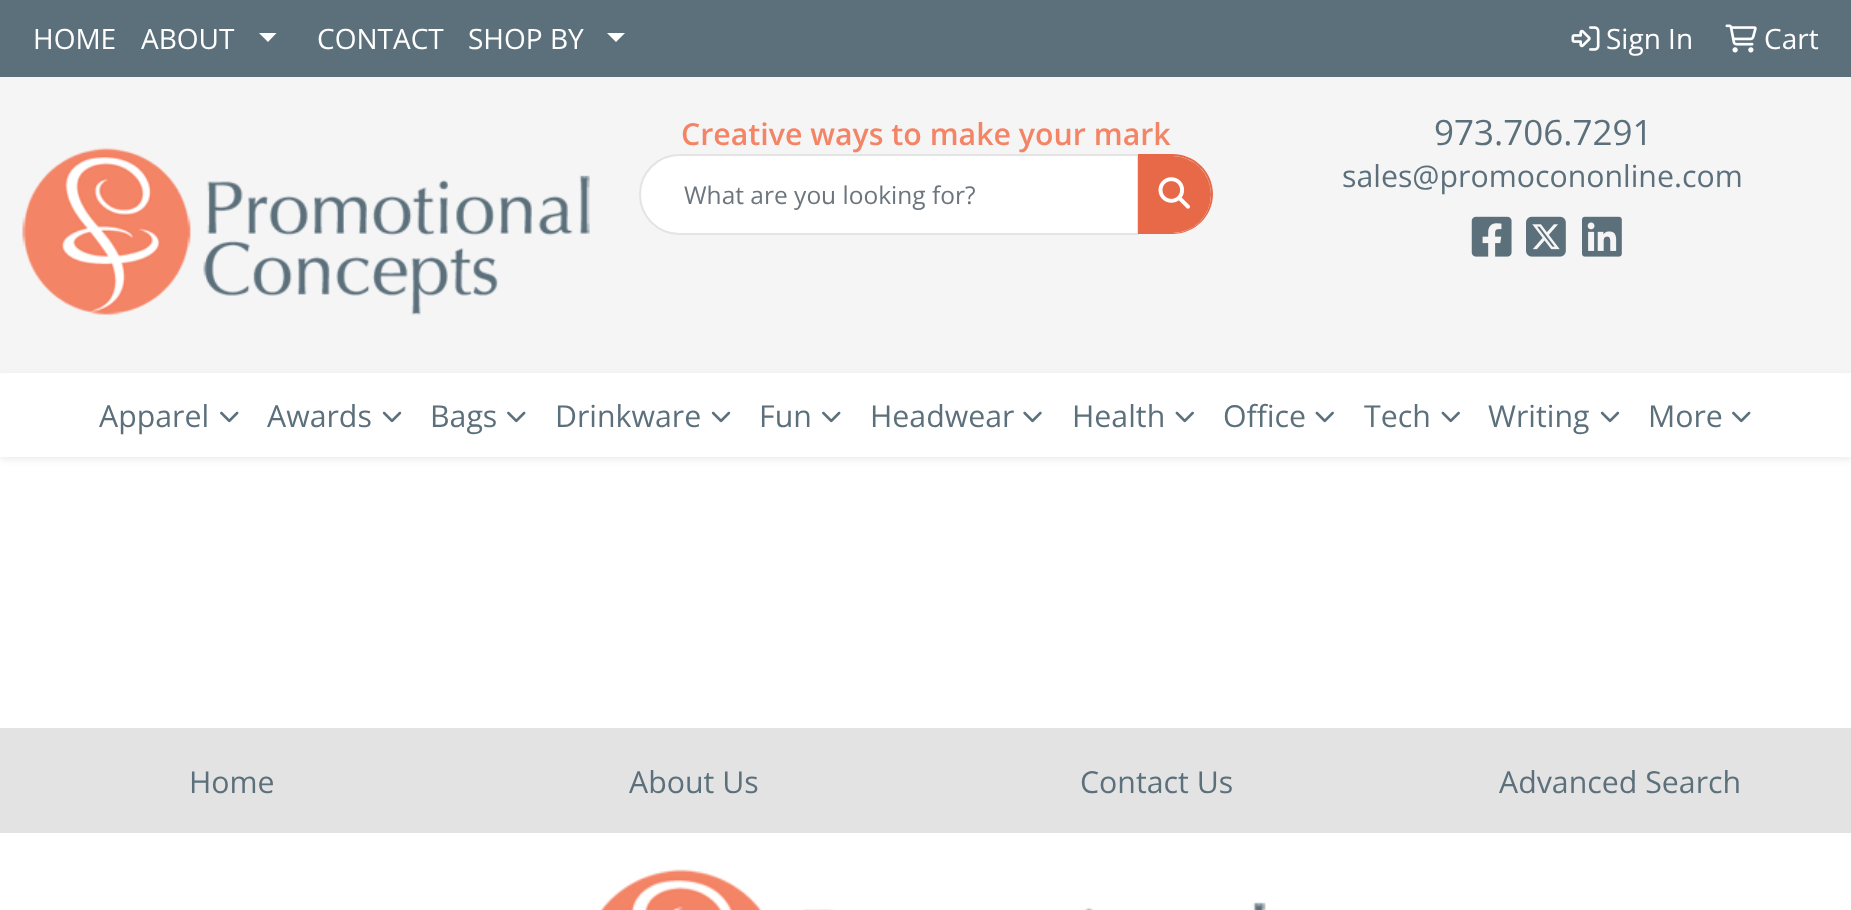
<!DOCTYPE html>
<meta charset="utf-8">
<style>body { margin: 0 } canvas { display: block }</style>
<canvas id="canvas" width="1851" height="910"></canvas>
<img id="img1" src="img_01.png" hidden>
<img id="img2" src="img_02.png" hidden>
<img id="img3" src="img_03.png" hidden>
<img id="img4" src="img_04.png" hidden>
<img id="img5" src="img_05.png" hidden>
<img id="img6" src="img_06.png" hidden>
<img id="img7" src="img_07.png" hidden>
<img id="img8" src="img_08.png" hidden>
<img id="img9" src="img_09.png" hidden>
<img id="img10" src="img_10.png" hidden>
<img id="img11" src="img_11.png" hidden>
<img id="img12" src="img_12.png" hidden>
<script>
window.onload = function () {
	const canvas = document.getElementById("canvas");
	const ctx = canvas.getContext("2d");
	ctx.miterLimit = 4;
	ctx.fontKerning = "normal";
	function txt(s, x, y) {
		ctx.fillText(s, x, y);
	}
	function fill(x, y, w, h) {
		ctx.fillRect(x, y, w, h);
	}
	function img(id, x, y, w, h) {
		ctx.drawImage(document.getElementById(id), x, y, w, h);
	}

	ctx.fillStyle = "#FFFFFF";
	fill(0, 0, 1851, 910);
	ctx.fillStyle = "#F5F5F5";
	fill(0, 77, 1851, 296);
	ctx.fillStyle = "#5C707C";
	fill(0, 0, 1851, 77);
	ctx.fillStyle = "#FFFFFF";
	ctx.beginPath();
	ctx.moveTo(259, 33);
	ctx.lineTo(276.5, 33);
	ctx.lineTo(268, 42);
	ctx.closePath();
	ctx.fill();
	ctx.beginPath();
	ctx.moveTo(607, 33);
	ctx.lineTo(625, 33);
	ctx.lineTo(616, 42);
	ctx.closePath();
	ctx.fill();
	img("img1", 1571, 26, 29, 25);
	img("img2", 1725, 24, 32, 29);
	img("img3", 22, 148, 568, 167);
	ctx.beginPath();
	ctx.roundRect(640, 155, 498, 79, [39.5, 0, 0, 39.5]);
	ctx.fill();
	ctx.strokeStyle = "#E4E4E4";
	ctx.lineWidth = 2;
	ctx.stroke();
	ctx.fillStyle = "#E76948";
	ctx.beginPath();
	ctx.roundRect(1138, 156, 73, 77, [0, 38.5, 38.5, 0]);
	ctx.fill();
	ctx.beginPath();
	ctx.moveTo(1138, 154);
	ctx.lineTo(1172, 154);
	ctx.bezierCurveTo(1195, 154, 1213, 172, 1213, 194);
	ctx.bezierCurveTo(1213, 216, 1195, 234, 1172, 234);
	ctx.lineTo(1138, 234);
	ctx.closePath();
	ctx.moveTo(1138, 156);
	ctx.lineTo(1172, 156);
	ctx.bezierCurveTo(1194, 156, 1211, 173, 1211, 194);
	ctx.bezierCurveTo(1211, 216, 1194, 233, 1172, 233);
	ctx.lineTo(1138, 233);
	ctx.closePath();
	ctx.fill("evenodd");
	img("img4", 1158, 177, 32, 32);
	img("img5", 1471, 216, 41, 41);
	img("img6", 1526, 216, 40, 41);
	img("img7", 1582, 216, 40, 41);
	ctx.fillStyle = "rgba(0, 0, 0, 0.07)";
	ctx.filter = "blur(3.5px)";
	ctx.beginPath();
	ctx.rect(0, 376, 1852, 84);
	ctx.fill();
	ctx.filter = "none";
	ctx.fillStyle = "#FFFFFF";
	fill(0, 373, 1851, 84);
	img("img8", 220, 411, 19, 12);
	img("img9", 382, 411, 20, 12);
	img("img8", 507, 411, 19, 12);
	img("img9", 711, 411, 20, 12);
	img("img8", 822, 411, 19, 12);
	img("img10", 1023, 411, 19, 12);
	img("img11", 1175, 411, 19, 12);
	img("img11", 1315, 411, 19, 12);
	img("img11", 1441, 411, 19, 12);
	img("img9", 1600, 411, 20, 12);
	img("img8", 1732, 411, 19, 12);
	ctx.fillStyle = "#E3E3E3";
	fill(0, 728, 1851, 105);
	img("img12", 600, 869, 666, 41);
	ctx.font = "28px Open Sans";
	ctx.fillStyle = "#FFFFFF";
	txt("HOME", 33, 49);
	txt("ABOUT", 141, 49);
	txt("CONTACT", 317, 49);
	txt("SHOP BY", 468, 49);
	txt("Sign In", 1606, 49);
	txt("Cart", 1764, 49);
	ctx.font = "600 30.3px Open Sans";
	ctx.fillStyle = "#F48466";
	txt("Creative ways to make your mark", 681, 145);
	ctx.font = "24.5px Open Sans";
	ctx.fillStyle = "#6C757D";
	txt("What are you looking for?", 684, 204);
	ctx.font = "35px Open Sans";
	ctx.fillStyle = "#5C707C";
	txt("973.706.7291", 1434, 145);
	ctx.font = "30.3px Open Sans";
	txt("sales@promocononline.com", 1342, 187);
	txt("Apparel", 99, 427);
	txt("Awards", 267, 427);
	txt("Bags", 430, 427);
	txt("Drinkware", 555, 427);
	txt("Fun", 759, 427);
	txt("Headwear", 870, 427);
	txt("Health", 1072, 427);
	txt("Office", 1223, 427);
	txt("Tech", 1364, 427);
	txt("Writing", 1488, 427);
	txt("More", 1648, 427);
	txt("Home", 189, 793);
	txt("About Us", 629, 793);
	txt("Contact Us", 1080, 793);
	txt("Advanced Search", 1499, 793);
};
</script>
